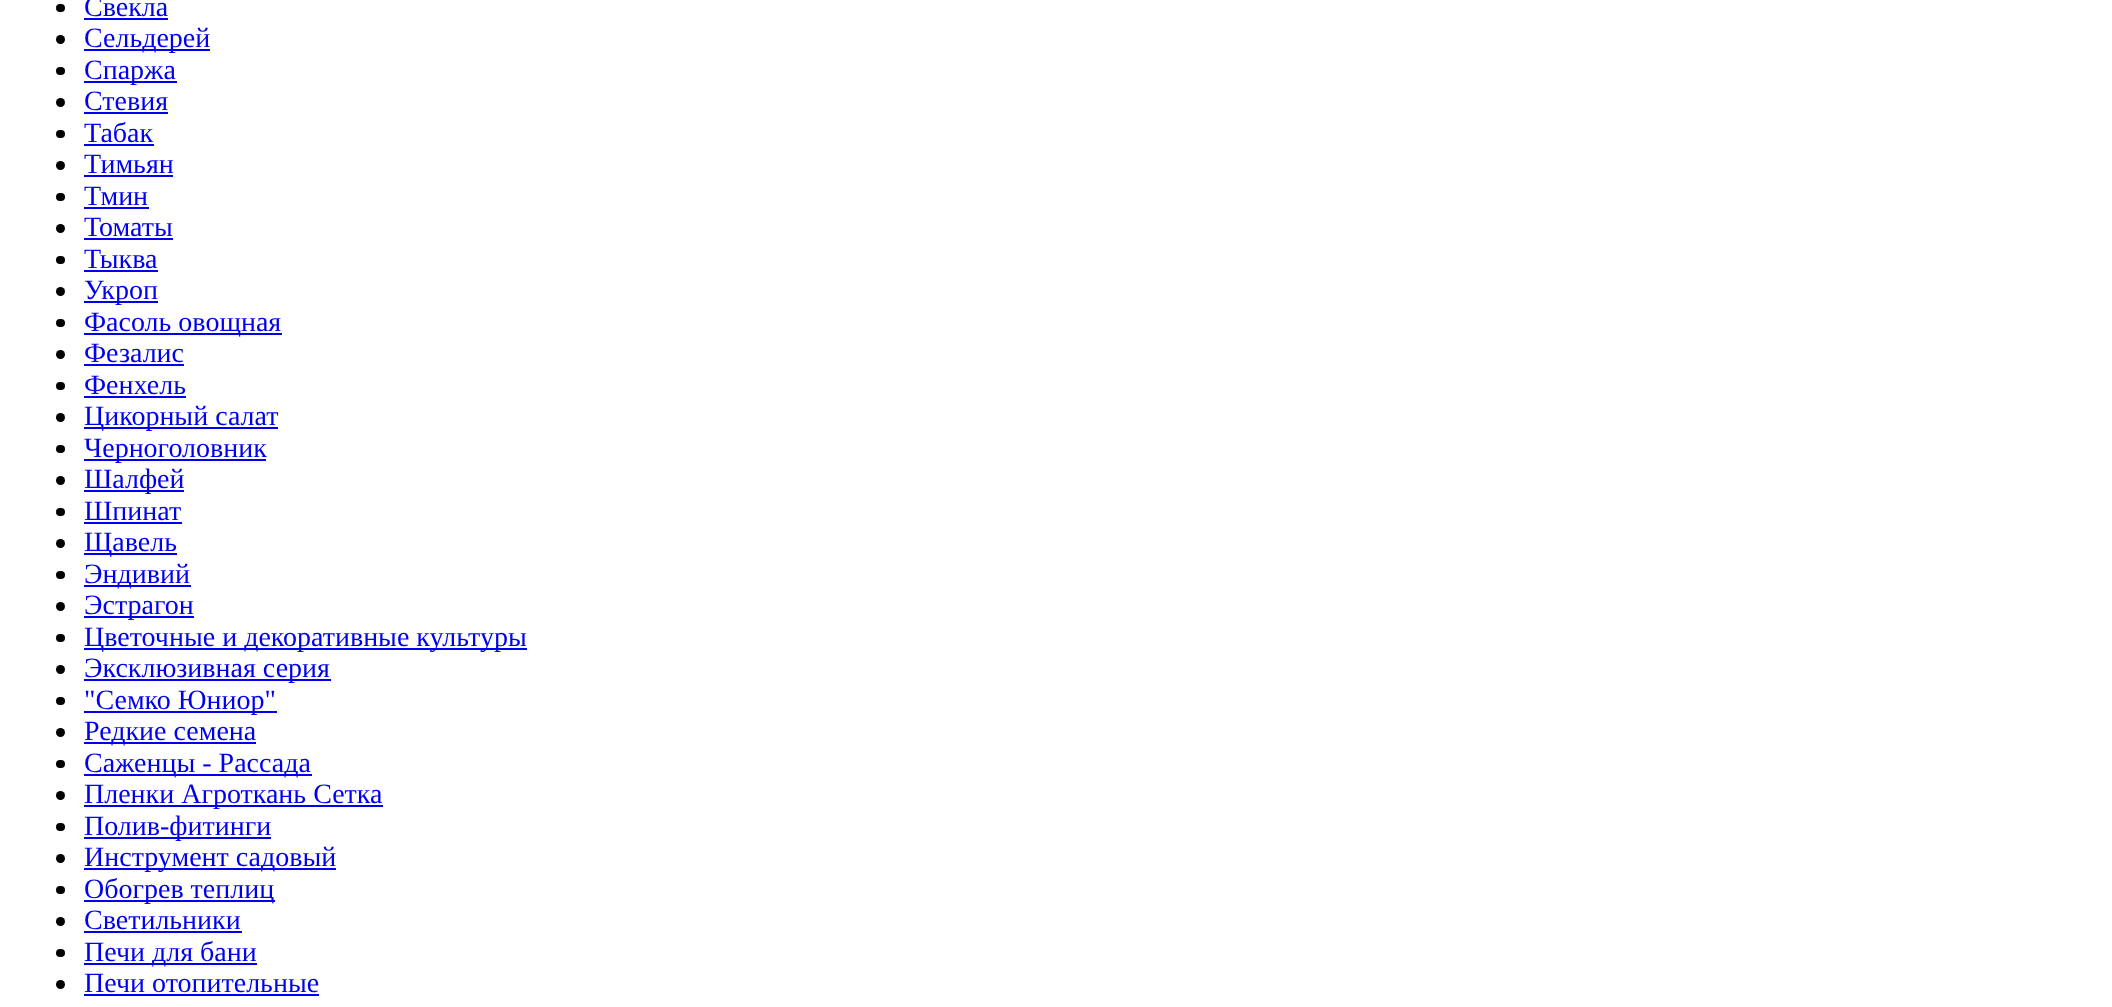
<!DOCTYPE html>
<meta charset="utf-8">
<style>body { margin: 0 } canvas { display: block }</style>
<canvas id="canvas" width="2112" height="1007"></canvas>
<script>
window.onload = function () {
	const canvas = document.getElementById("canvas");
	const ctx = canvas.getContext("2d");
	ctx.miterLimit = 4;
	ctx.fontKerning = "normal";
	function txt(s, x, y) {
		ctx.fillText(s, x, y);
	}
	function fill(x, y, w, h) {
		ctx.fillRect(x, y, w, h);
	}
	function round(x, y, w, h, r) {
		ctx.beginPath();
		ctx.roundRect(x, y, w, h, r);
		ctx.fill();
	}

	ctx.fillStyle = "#FFFFFF";
	fill(0, 0, 2112, 1007);
	ctx.fillStyle = "#000000";
	round(56, 4, 9, 8, 4);
	ctx.fillStyle = "#0000EE";
	fill(84, 18, 84, 2);
	ctx.fillStyle = "#000000";
	ctx.beginPath();
	ctx.arc(60.5, 39.5, 4.5, 0, Math.PI * 2);
	ctx.fill();
	ctx.fillStyle = "#0000EE";
	fill(84, 49, 126, 2);
	ctx.fillStyle = "#000000";
	round(56, 67, 9, 8, 4);
	ctx.fillStyle = "#0000EE";
	fill(84, 81, 93, 2);
	ctx.fillStyle = "#000000";
	ctx.beginPath();
	ctx.arc(60.5, 102.5, 4.5, 0, Math.PI * 2);
	ctx.fill();
	ctx.fillStyle = "#0000EE";
	fill(84, 112, 84, 2);
	ctx.fillStyle = "#000000";
	round(56, 130, 9, 8, 4);
	ctx.fillStyle = "#0000EE";
	fill(84, 144, 70, 2);
	ctx.fillStyle = "#000000";
	ctx.beginPath();
	ctx.arc(60.5, 165.5, 4.5, 0, Math.PI * 2);
	ctx.fill();
	ctx.fillStyle = "#0000EE";
	fill(84, 175, 89, 2);
	ctx.fillStyle = "#000000";
	round(56, 193, 9, 8, 4);
	ctx.fillStyle = "#0000EE";
	fill(84, 207, 65, 2);
	ctx.fillStyle = "#000000";
	ctx.beginPath();
	ctx.arc(60.5, 228.5, 4.5, 0, Math.PI * 2);
	ctx.fill();
	ctx.fillStyle = "#0000EE";
	fill(84, 238, 89, 2);
	ctx.fillStyle = "#000000";
	round(56, 256, 9, 8, 4);
	ctx.fillStyle = "#0000EE";
	fill(84, 270, 74, 2);
	ctx.fillStyle = "#000000";
	ctx.beginPath();
	ctx.arc(60.5, 291.5, 4.5, 0, Math.PI * 2);
	ctx.fill();
	ctx.fillStyle = "#0000EE";
	fill(84, 301, 74, 2);
	ctx.fillStyle = "#000000";
	round(56, 319, 9, 8, 4);
	ctx.fillStyle = "#0000EE";
	fill(84, 333, 198, 2);
	ctx.fillStyle = "#000000";
	ctx.beginPath();
	ctx.arc(60.5, 354.5, 4.5, 0, Math.PI * 2);
	ctx.fill();
	ctx.fillStyle = "#0000EE";
	fill(84, 364, 100, 2);
	ctx.fillStyle = "#000000";
	round(56, 382, 9, 8, 4);
	ctx.fillStyle = "#0000EE";
	fill(84, 396, 102, 2);
	ctx.fillStyle = "#000000";
	ctx.beginPath();
	ctx.arc(60.5, 417.5, 4.5, 0, Math.PI * 2);
	ctx.fill();
	ctx.fillStyle = "#0000EE";
	fill(84, 427, 194, 2);
	ctx.fillStyle = "#000000";
	round(56, 445, 9, 8, 4);
	ctx.fillStyle = "#0000EE";
	fill(84, 459, 182, 2);
	ctx.fillStyle = "#000000";
	ctx.beginPath();
	ctx.arc(60.5, 480.5, 4.5, 0, Math.PI * 2);
	ctx.fill();
	ctx.fillStyle = "#0000EE";
	fill(84, 490, 100, 2);
	ctx.fillStyle = "#000000";
	round(56, 508, 9, 8, 4);
	ctx.fillStyle = "#0000EE";
	fill(84, 522, 98, 2);
	ctx.fillStyle = "#000000";
	ctx.beginPath();
	ctx.arc(60.5, 543.5, 4.5, 0, Math.PI * 2);
	ctx.fill();
	ctx.fillStyle = "#0000EE";
	fill(84, 553, 93, 2);
	ctx.fillStyle = "#000000";
	round(56, 571, 9, 8, 4);
	ctx.fillStyle = "#0000EE";
	fill(84, 585, 107, 2);
	ctx.fillStyle = "#000000";
	ctx.beginPath();
	ctx.arc(60.5, 606.5, 4.5, 0, Math.PI * 2);
	ctx.fill();
	ctx.fillStyle = "#0000EE";
	fill(84, 616, 110, 2);
	ctx.fillStyle = "#000000";
	round(56, 634, 9, 8, 4);
	ctx.fillStyle = "#0000EE";
	fill(84, 648, 443, 2);
	ctx.fillStyle = "#000000";
	ctx.beginPath();
	ctx.arc(60.5, 669.5, 4.5, 0, Math.PI * 2);
	ctx.fill();
	ctx.fillStyle = "#0000EE";
	fill(84, 679, 247, 2);
	ctx.fillStyle = "#000000";
	round(56, 697, 9, 8, 4);
	ctx.fillStyle = "#0000EE";
	fill(84, 711, 193, 2);
	ctx.fillStyle = "#000000";
	ctx.beginPath();
	ctx.arc(60.5, 732.5, 4.5, 0, Math.PI * 2);
	ctx.fill();
	ctx.fillStyle = "#0000EE";
	fill(84, 742, 172, 2);
	ctx.fillStyle = "#000000";
	round(56, 760, 9, 8, 4);
	ctx.fillStyle = "#0000EE";
	fill(84, 774, 228, 2);
	ctx.fillStyle = "#000000";
	ctx.beginPath();
	ctx.arc(60.5, 795.5, 4.5, 0, Math.PI * 2);
	ctx.fill();
	ctx.fillStyle = "#0000EE";
	fill(84, 805, 299, 2);
	ctx.fillStyle = "#000000";
	round(56, 823, 9, 8, 4);
	ctx.fillStyle = "#0000EE";
	fill(84, 837, 187, 2);
	ctx.fillStyle = "#000000";
	ctx.beginPath();
	ctx.arc(60.5, 858.5, 4.5, 0, Math.PI * 2);
	ctx.fill();
	ctx.fillStyle = "#0000EE";
	fill(84, 868, 252, 2);
	ctx.fillStyle = "#000000";
	round(56, 886, 9, 8, 4);
	ctx.fillStyle = "#0000EE";
	fill(84, 900, 191, 2);
	ctx.fillStyle = "#000000";
	ctx.beginPath();
	ctx.arc(60.5, 921.5, 4.5, 0, Math.PI * 2);
	ctx.fill();
	ctx.fillStyle = "#0000EE";
	fill(84, 931, 158, 2);
	ctx.fillStyle = "#000000";
	round(56, 949, 9, 8, 4);
	ctx.fillStyle = "#0000EE";
	fill(84, 963, 173, 2);
	ctx.fillStyle = "#000000";
	ctx.beginPath();
	ctx.arc(60.5, 984.5, 4.5, 0, Math.PI * 2);
	ctx.fill();
	ctx.fillStyle = "#0000EE";
	fill(84, 994, 235, 2);
	ctx.font = "28px Liberation Serif";
	txt("Свекла", 84, 16);
	txt("Сельдерей", 84, 47);
	txt("Спаржа", 84, 79);
	txt("Стевия", 84, 110);
	txt("Табак", 84, 142);
	txt("Тимьян", 84, 173);
	txt("Тмин", 84, 205);
	txt("Томаты", 84, 236);
	txt("Тыква", 84, 268);
	txt("Укроп", 84, 299);
	txt("Фасоль овощная", 84, 331);
	txt("Фезалис", 84, 362);
	txt("Фенхель", 84, 394);
	txt("Цикорный салат", 84, 425);
	txt("Черноголовник", 84, 457);
	txt("Шалфей", 84, 488);
	txt("Шпинат", 84, 520);
	txt("Щавель", 84, 551);
	txt("Эндивий", 84, 583);
	txt("Эстрагон", 84, 614);
	txt("Цветочные и декоративные культуры", 84, 646);
	txt("Эксклюзивная серия", 84, 677);
	txt("\"Семко Юниор\"", 84, 709);
	txt("Редкие семена", 84, 740);
	txt("Саженцы - Рассада", 84, 772);
	txt("Пленки Агроткань Сетка", 84, 803);
	txt("Полив-фитинги", 84, 835);
	txt("Инструмент садовый", 84, 866);
	txt("Обогрев теплиц", 84, 898);
	txt("Светильники", 84, 929);
	txt("Печи для бани", 84, 961);
	txt("Печи отопительные", 84, 992);
};
</script>
